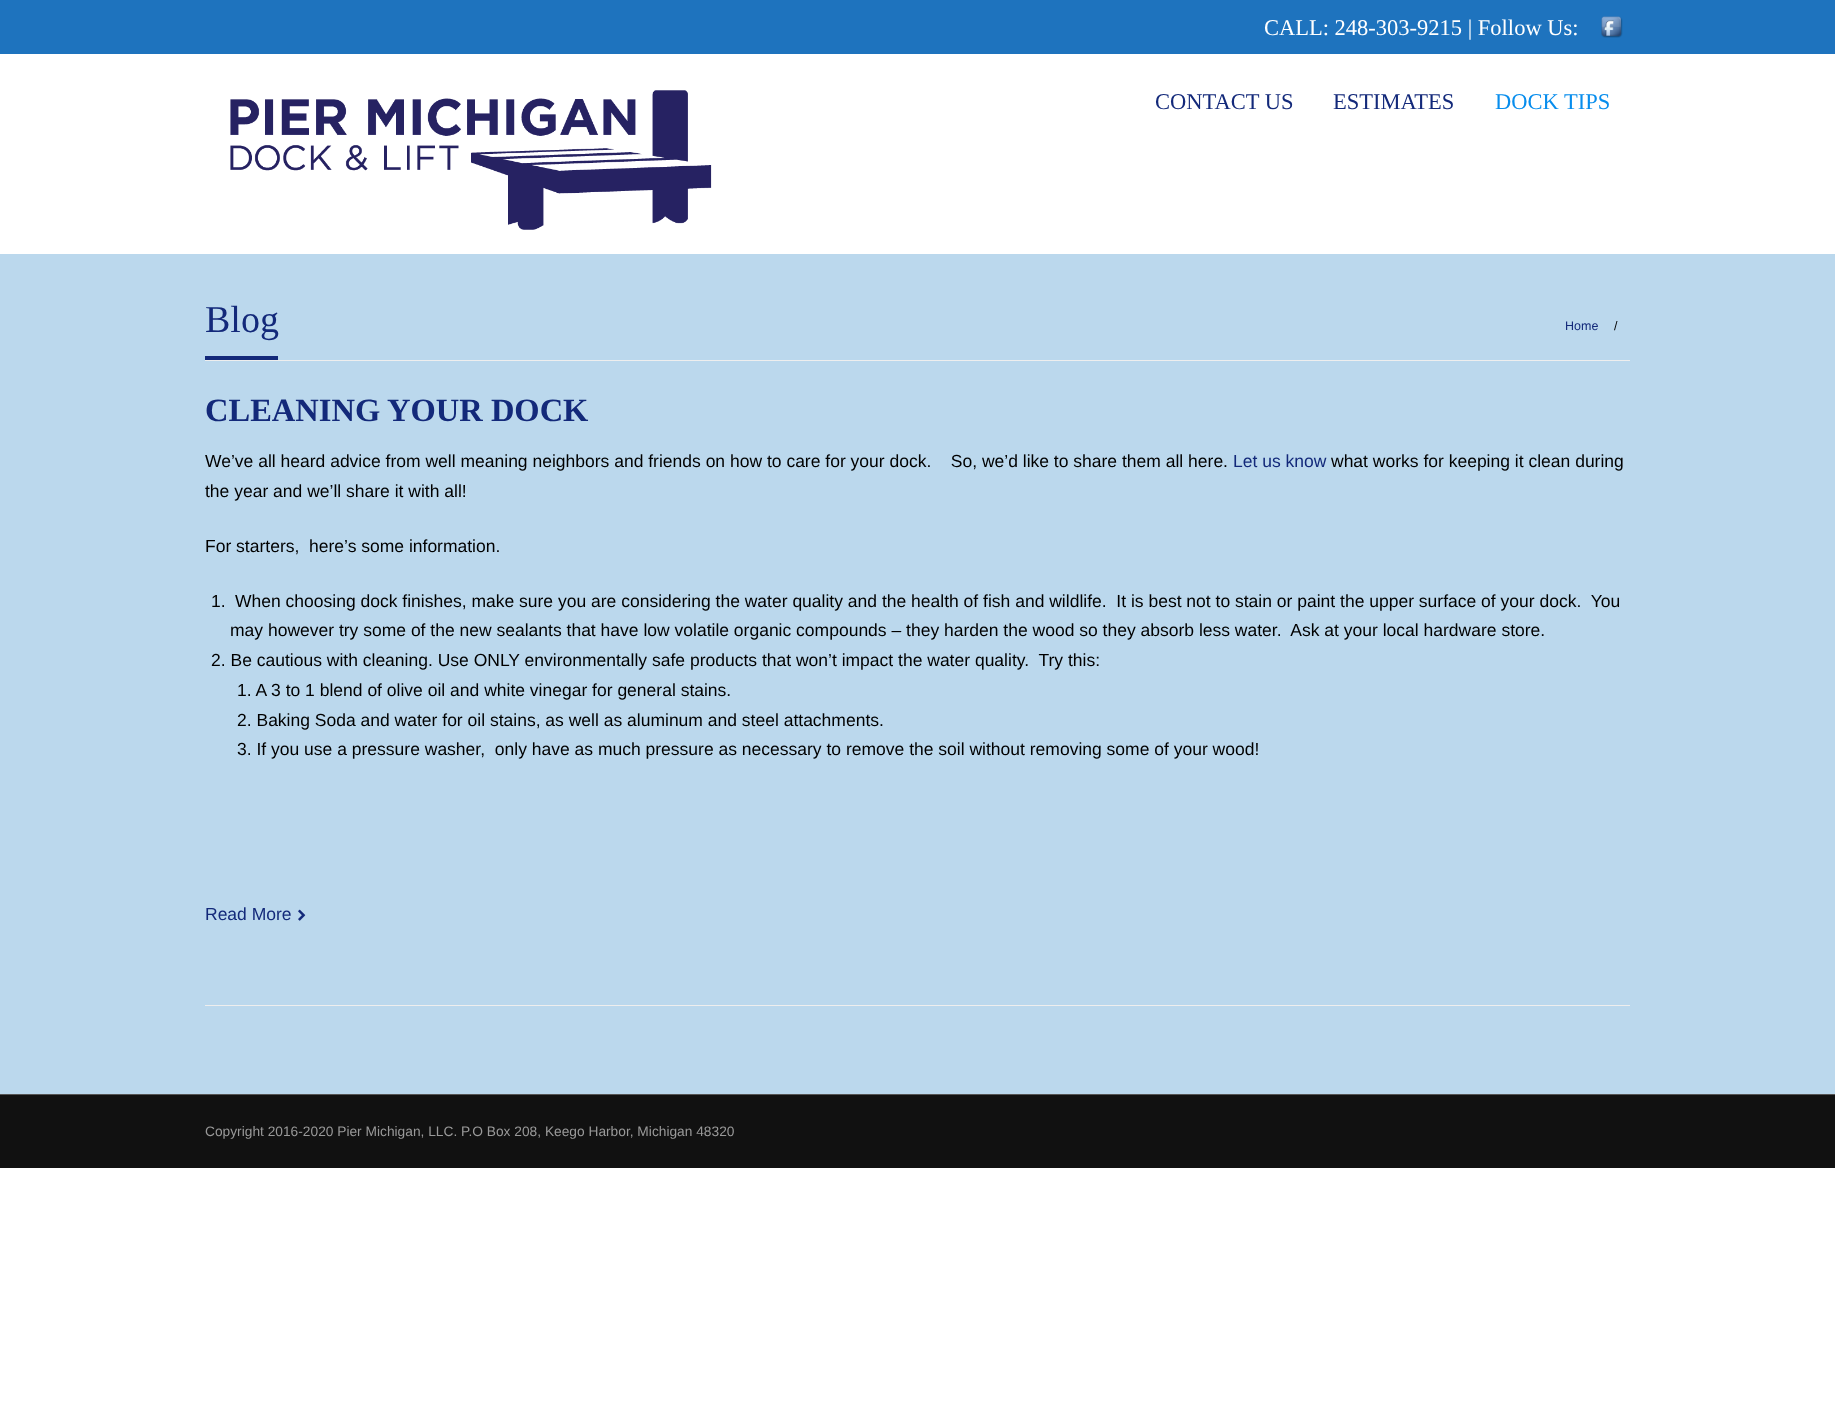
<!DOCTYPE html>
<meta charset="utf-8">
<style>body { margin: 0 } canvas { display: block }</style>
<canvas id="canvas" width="1835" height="1407"></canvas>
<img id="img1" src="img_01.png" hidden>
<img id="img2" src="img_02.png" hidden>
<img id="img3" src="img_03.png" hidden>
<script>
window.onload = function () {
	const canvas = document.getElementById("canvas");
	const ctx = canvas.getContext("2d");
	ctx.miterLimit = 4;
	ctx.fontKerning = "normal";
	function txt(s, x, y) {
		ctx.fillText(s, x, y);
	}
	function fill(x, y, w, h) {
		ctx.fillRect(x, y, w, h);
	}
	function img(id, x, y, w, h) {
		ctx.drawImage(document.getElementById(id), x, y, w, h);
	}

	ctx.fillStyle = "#FFFFFF";
	fill(0, 0, 1835, 1407);
	ctx.fillStyle = "#BBD8ED";
	fill(0, 254, 1835, 840);
	ctx.fillStyle = "#1E73BE";
	fill(0, 0, 1835, 54);
	img("img1", 1601, 16, 22, 22);
	img("img2", 230, 90, 482, 140);
	ctx.fillStyle = "#EEEEEE";
	fill(205, 360, 1425, 1);
	ctx.fillStyle = "#13297A";
	fill(205, 356, 73, 4);
	ctx.fillStyle = "#EEEEEE";
	fill(205, 1005, 1425, 1);
	img("img3", 298, 909, 8, 12);
	ctx.fillStyle = "#111111";
	fill(0, 1095, 1835, 73);
	ctx.fillStyle = "#555555";
	fill(0, 1094, 1835, 1);
	ctx.font = "22.5px Liberation Serif";
	ctx.fillStyle = "#FFFFFF";
	txt("CALL: 248-303-9215 | Follow Us:", 1264, 35);
	ctx.fillStyle = "#13297A";
	txt("CONTACT US", 1155, 109);
	txt("ESTIMATES", 1333, 109);
	ctx.fillStyle = "#078DED";
	txt("DOCK TIPS", 1495, 109);
	ctx.font = "38px Liberation Serif";
	ctx.fillStyle = "#13297A";
	txt("Blog", 205, 332);
	ctx.font = "12.5px Liberation Sans";
	txt("Home", 1565, 330);
	ctx.fillStyle = "#000000";
	txt("/", 1614, 330);
	ctx.font = "bold 32.5px Liberation Serif";
	ctx.fillStyle = "#13297A";
	txt("CLEANING YOUR DOCK", 205, 421);
	ctx.font = "17.5px Liberation Sans";
	ctx.fillStyle = "#000000";
	txt("We’ve all heard advice from well meaning neighbors and friends on how to care for your dock.    So, we’d like to share them all here.", 205, 467);
	ctx.fillStyle = "#13297A";
	txt("Let us know", 1233, 467);
	ctx.fillStyle = "#000000";
	txt("what works for keeping it clean during", 1331, 467);
	txt("the year and we’ll share it with all!", 205, 497);
	txt("For starters,  here’s some information.", 205, 552);
	txt("1.", 211, 607);
	txt("When choosing dock finishes, make sure you are considering the water quality and the health of fish and wildlife.  It is best not to stain or paint the upper surface of your dock.  You", 235, 607);
	txt("may however try some of the new sealants that have low volatile organic compounds – they harden the wood so they absorb less water.  Ask at your local hardware store.", 230, 636);
	txt("2. Be cautious with cleaning. Use ONLY environmentally safe products that won’t impact the water quality.  Try this:", 211, 666);
	txt("1. A 3 to 1 blend of olive oil and white vinegar for general stains.", 237, 696);
	txt("2. Baking Soda and water for oil stains, as well as aluminum and steel attachments.", 237, 726);
	txt("3. If you use a pressure washer,  only have as much pressure as necessary to remove the soil without removing some of your wood!", 237, 755);
	ctx.fillStyle = "#13297A";
	txt("Read More", 205, 920);
	ctx.font = "13.75px Liberation Sans";
	ctx.fillStyle = "#999999";
	txt("Copyright 2016-2020 Pier Michigan, LLC. P.O Box 208, Keego Harbor, Michigan 48320", 205, 1136);
};
</script>
